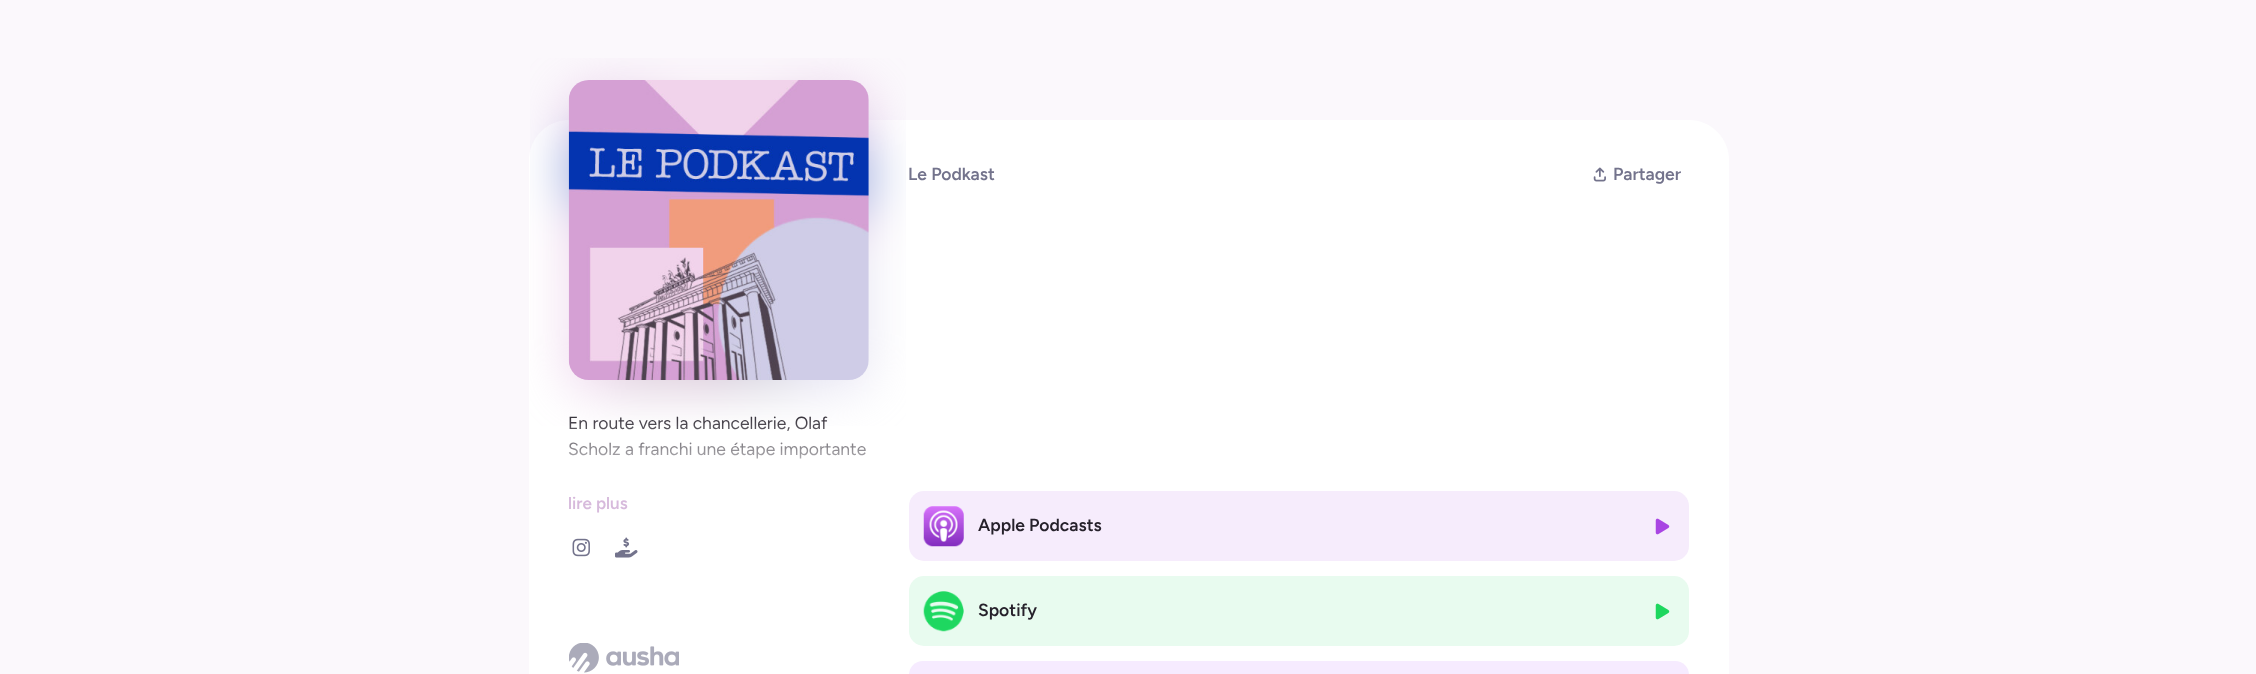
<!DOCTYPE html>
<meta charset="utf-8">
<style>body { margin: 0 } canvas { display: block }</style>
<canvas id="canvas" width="2256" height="674"></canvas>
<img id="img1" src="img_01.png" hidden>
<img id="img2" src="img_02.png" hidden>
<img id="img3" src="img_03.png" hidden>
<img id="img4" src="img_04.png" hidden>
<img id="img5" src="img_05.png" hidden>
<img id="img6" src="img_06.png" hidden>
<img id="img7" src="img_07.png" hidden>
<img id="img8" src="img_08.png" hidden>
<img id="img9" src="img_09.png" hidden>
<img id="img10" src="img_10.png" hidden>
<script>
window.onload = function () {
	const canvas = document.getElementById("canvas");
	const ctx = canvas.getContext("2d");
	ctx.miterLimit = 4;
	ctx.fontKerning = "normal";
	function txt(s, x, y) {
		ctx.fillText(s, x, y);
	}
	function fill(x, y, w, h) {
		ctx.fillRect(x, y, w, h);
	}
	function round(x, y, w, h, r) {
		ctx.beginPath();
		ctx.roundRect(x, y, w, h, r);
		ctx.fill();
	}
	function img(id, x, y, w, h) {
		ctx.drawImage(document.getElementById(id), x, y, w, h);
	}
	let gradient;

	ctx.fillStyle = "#FBF8FC";
	fill(0, 0, 2256, 674);
	ctx.fillStyle = "#FFFFFF";
	ctx.beginPath();
	ctx.moveTo(569, 120);
	ctx.lineTo(1689, 120);
	ctx.bezierCurveTo(1711, 120, 1729, 138, 1729, 160);
	ctx.lineTo(1729, 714);
	ctx.lineTo(529, 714);
	ctx.lineTo(529, 160);
	ctx.bezierCurveTo(529, 138, 547, 120, 569, 120);
	ctx.closePath();
	ctx.fill();
	img("img1", 530, 58, 376, 368);
	img("img2", 568, 80, 301, 300);
	img("img3", 572, 538, 18, 19);
	img("img4", 615, 537, 23, 21);
	img("img5", 569, 643, 110, 30);
	img("img6", 1593, 167, 13, 15);
	ctx.fillStyle = "#F6ECFC";
	round(909, 491, 780, 70, 15);
	img("img7", 923, 506, 41, 41);
	img("img8", 1655, 518, 15, 17);
	ctx.fillStyle = "#E8FBEF";
	round(909, 576, 780, 70, 15);
	img("img9", 923, 591, 41, 41);
	img("img10", 1655, 603, 15, 17);
	ctx.fillStyle = "#F6EBFF";
	round(909, 661, 780, 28, 15);
	ctx.font = "17.5px Figtree";
	ctx.fillStyle = "#26212B";
	txt("En route vers la chancellerie, Olaf", 568, 429);
	txt("Scholz a franchi une étape importante", 568, 455);
	gradient = ctx.createLinearGradient(719, 490, 719, 410);
	gradient.addColorStop(0, "#FFFFFF");
	gradient.addColorStop(1, "rgba(255, 255, 255, 0)");
	ctx.fillStyle = gradient;
	fill(569, 416, 297, 43);
	ctx.font = "600 17px Figtree";
	ctx.fillStyle = "#D7BADC";
	txt("lire plus", 568, 509);
	ctx.font = "600 17.5px Figtree";
	ctx.fillStyle = "#73738C";
	txt("Le Podkast", 908, 180);
	txt("Partager", 1613, 180);
	ctx.fillStyle = "#26212B";
	txt("Apple Podcasts", 978, 531);
	txt("Spotify", 978, 616);
};
</script>
